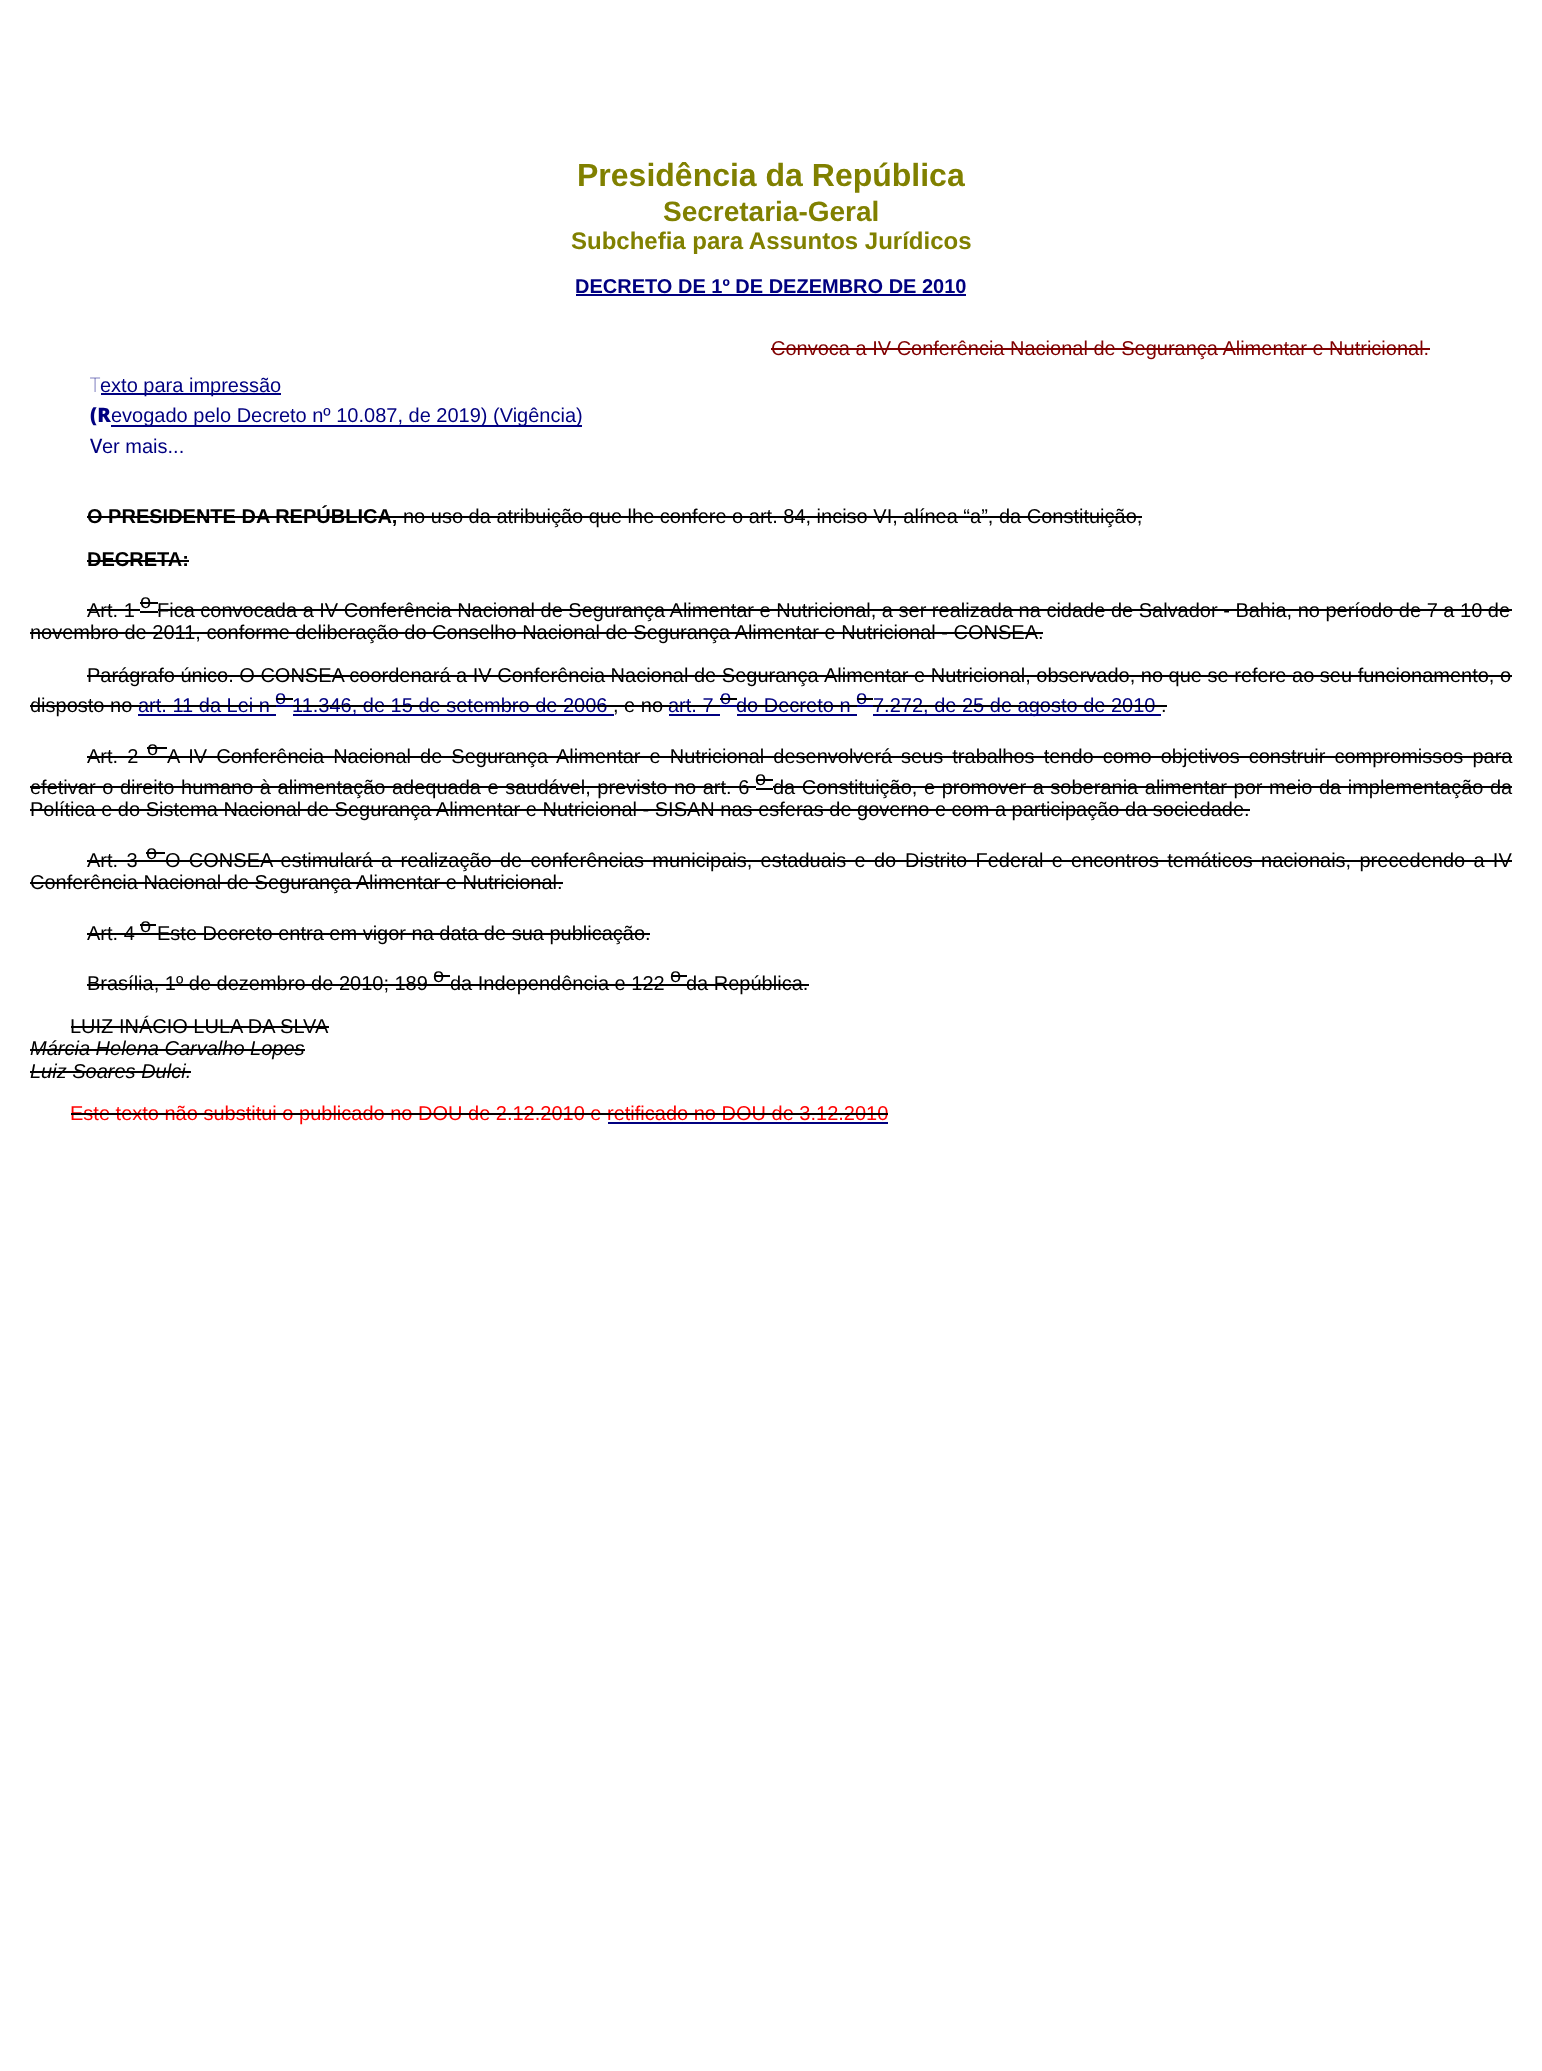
<!DOCTYPE html>
<meta charset="utf-8">
<style>body { margin: 0 } canvas { display: block }</style>
<canvas id="canvas" width="1542" height="2071"></canvas>
<script>
window.onload = function () {
	const canvas = document.getElementById("canvas");
	const ctx = canvas.getContext("2d");
	ctx.miterLimit = 4;
	ctx.fontKerning = "normal";
	function txt(s, x, y) {
		ctx.fillText(s, x, y);
	}
	function fill(x, y, w, h) {
		ctx.fillRect(x, y, w, h);
	}

	ctx.fillStyle = "#FFFFFF";
	fill(0, 0, 1542, 2071);
	ctx.fillStyle = "#000080";
	fill(576, 294, 390, 2);
	ctx.fillStyle = "#800000";
	fill(771, 348, 659, 2);
	ctx.fillStyle = "#000080";
	fill(101, 393, 180, 2);
	fill(111, 425, 471, 2);
	ctx.fillStyle = "#000000";
	fill(87, 516, 315, 2);
	fill(402, 516, 740, 2);
	fill(87, 560, 102, 2);
	fill(87, 609, 53, 2);
	fill(140, 602, 18, 2);
	fill(140, 611, 18, 2);
	fill(158, 609, 1354, 2);
	fill(30, 632, 1013, 2);
	fill(87, 675, 737, 2);
	fill(824, 675, 688, 2);
	fill(30, 705, 108, 2);
	ctx.fillStyle = "#000080";
	fill(138, 714, 138, 2);
	fill(276, 705, 17, 2);
	fill(293, 714, 321, 2);
	ctx.fillStyle = "#000000";
	fill(614, 705, 55, 2);
	ctx.fillStyle = "#000080";
	fill(669, 714, 51, 2);
	fill(720, 705, 17, 2);
	fill(737, 714, 120, 2);
	fill(857, 705, 16, 2);
	fill(873, 714, 288, 2);
	ctx.fillStyle = "#000000";
	fill(87, 756, 80, 2);
	fill(147, 747, 20, 2);
	fill(167, 756, 735, 2);
	fill(902, 756, 610, 2);
	fill(30, 786, 90, 2);
	fill(120, 786, 636, 2);
	fill(756, 779, 17, 2);
	fill(756, 788, 17, 2);
	fill(773, 786, 717, 2);
	fill(1490, 786, 22, 2);
	fill(30, 809, 1220, 2);
	fill(87, 860, 78, 2);
	fill(146, 852, 19, 2);
	fill(165, 860, 740, 2);
	fill(905, 860, 607, 2);
	fill(30, 882, 533, 2);
	fill(87, 933, 69, 2);
	fill(140, 924, 16, 2);
	fill(156, 933, 494, 2);
	fill(434, 975, 16, 2);
	fill(87, 984, 363, 2);
	fill(450, 984, 237, 2);
	fill(671, 975, 16, 2);
	fill(687, 984, 122, 2);
	fill(71, 1026, 258, 2);
	fill(30, 1049, 275, 2);
	fill(30, 1071, 161, 2);
	ctx.font = "bold 32px Liberation Sans";
	ctx.fillStyle = "#808000";
	txt("Presidência da República", 577, 186);
	ctx.font = "bold 28px Liberation Sans";
	txt("Secretaria-Geral", 663, 221);
	ctx.font = "bold 24px Liberation Sans";
	txt("Subchefia para Assuntos Jurídicos", 571, 249);
	ctx.font = "bold 20px Liberation Sans";
	ctx.fillStyle = "#000080";
	txt("DECRETO DE 1º DE DEZEMBRO DE 2010", 575, 293);
	ctx.font = "20px Liberation Sans";
	ctx.fillStyle = "#800000";
	txt("Convoca a IV Conferência Nacional de Segurança Alimentar e Nutricional.", 771, 355);
	ctx.font = "100 20px Noto Sans";
	ctx.fillStyle = "#000080";
	txt("T", 90, 392);
	ctx.font = "20px Liberation Sans";
	txt("exto para impressão", 100, 392);
	ctx.font = "900 20px Noto Sans";
	txt("(R", 90, 422);
	ctx.font = "20px Liberation Sans";
	txt("evogado pelo Decreto nº 10.087, de 2019) (Vigência)", 111, 422);
	ctx.font = "500 20px Noto Sans";
	txt("V", 90, 453);
	ctx.font = "20px Liberation Sans";
	txt("er mais...", 102, 453);
	ctx.font = "bold 20px Liberation Sans";
	ctx.fillStyle = "#000000";
	txt("O PRESIDENTE DA REPÚBLICA,", 87, 523);
	ctx.font = "20px Liberation Sans";
	txt("no uso da atribuição que lhe confere o art. 84, inciso VI, alínea “a”, da Constituição,", 403, 523);
	ctx.font = "bold 20px Liberation Sans";
	txt("DECRETA:", 87, 566);
	ctx.font = "20px Liberation Sans";
	txt("Art. 1", 87, 617);
	txt("o", 140, 608);
	txt("Fica convocada a IV Conferência Nacional de Segurança Alimentar e Nutricional, a ser realizada na cidade de Salvador - Bahia, no período de 7 a 10 de", 157, 617);
	txt("novembro de 2011, conforme deliberação do Conselho Nacional de Segurança Alimentar e Nutricional - CONSEA.", 30, 639);
	txt("Parágrafo único. O CONSEA coordenará a IV Conferência Nacional de Segurança", 87, 682);
	txt("Alimentar e Nutricional, observado, no que se refere ao seu funcionamento, o", 824, 682);
	txt("disposto no", 30, 712);
	ctx.fillStyle = "#000080";
	txt("art. 11 da Lei n", 138, 712);
	ctx.fillStyle = "#000000";
	fill(138, 705, 138, 2);
	ctx.fillStyle = "#000080";
	txt("o", 275, 704);
	ctx.fillStyle = "#000000";
	fill(276, 698, 17, 2);
	ctx.fillStyle = "#000080";
	txt("11.346, de 15 de setembro de 2006", 292, 712);
	ctx.fillStyle = "#000000";
	fill(293, 705, 321, 2);
	txt(", e no", 613, 712);
	ctx.fillStyle = "#000080";
	txt("art. 7", 668, 712);
	ctx.fillStyle = "#000000";
	fill(669, 705, 51, 2);
	ctx.fillStyle = "#000080";
	txt("o", 720, 704);
	ctx.fillStyle = "#000000";
	fill(720, 698, 17, 2);
	ctx.fillStyle = "#000080";
	txt("do Decreto n", 736, 712);
	ctx.fillStyle = "#000000";
	fill(737, 705, 120, 2);
	ctx.fillStyle = "#000080";
	txt("o", 856, 704);
	ctx.fillStyle = "#000000";
	fill(857, 698, 16, 2);
	ctx.fillStyle = "#000080";
	txt("7.272, de 25 de agosto de 2010", 873, 712);
	ctx.fillStyle = "#000000";
	fill(873, 705, 294, 2);
	txt(".", 1161, 712);
	ctx.wordSpacing = "3.5px";
	txt("Art. 2", 87, 763);
	ctx.wordSpacing = "0px";
	txt("o", 147, 755);
	ctx.wordSpacing = "3.5px";
	txt("A IV Conferência Nacional de Segurança Alimentar e Nutricional desenvolverá", 167, 763);
	txt("seus trabalhos tendo como objetivos construir compromissos para", 901, 763);
	ctx.wordSpacing = "1px";
	txt("efetivar o", 30, 794);
	txt("direito humano à alimentação adequada e saudável, previsto no art. 6", 120, 794);
	ctx.wordSpacing = "0px";
	txt("o", 755, 785);
	ctx.wordSpacing = "1px";
	txt("da Constituição, e promover a soberania alimentar por meio da implementação", 773, 794);
	ctx.wordSpacing = "0px";
	txt("da", 1490, 794);
	txt("Política e do Sistema Nacional de Segurança Alimentar e Nutricional - SISAN nas esferas de governo e com a participação da sociedade.", 30, 816);
	ctx.wordSpacing = "2.75px";
	txt("Art. 3", 87, 867);
	ctx.wordSpacing = "0px";
	txt("o", 146, 859);
	ctx.wordSpacing = "2.75px";
	txt("O CONSEA estimulará a realização de conferências municipais, estaduais e do", 165, 867);
	txt("Distrito Federal e encontros temáticos nacionais, precedendo a IV", 905, 867);
	ctx.wordSpacing = "0px";
	txt("Conferência Nacional de Segurança Alimentar e Nutricional.", 30, 889);
	txt("Art. 4", 87, 940);
	txt("o", 140, 932);
	txt("Este Decreto entra em vigor na data de sua publicação.", 157, 940);
	txt("Brasília, 1º de dezembro de 2010; 189", 87, 990);
	txt("o", 433, 982);
	txt("da Independência e 122", 450, 990);
	txt("o", 670, 982);
	txt("da República.", 686, 990);
	txt("LUIZ INÁCIO LULA DA SLVA", 70, 1033);
	ctx.font = "italic 20px Liberation Sans";
	txt("Márcia Helena Carvalho Lopes", 30, 1055);
	txt("Luiz Soares Dulci.", 30, 1078);
	ctx.font = "20px Liberation Sans";
	ctx.fillStyle = "#FF0000";
	txt("Este texto não substitui o publicado no DOU de 2.12.2010 e retificado no DOU de 3.12.2010", 70, 1120);
	ctx.fillStyle = "#000000";
	fill(71, 1113, 817, 2);
	ctx.fillStyle = "#000080";
	fill(608, 1122, 280, 2);
};
</script>
